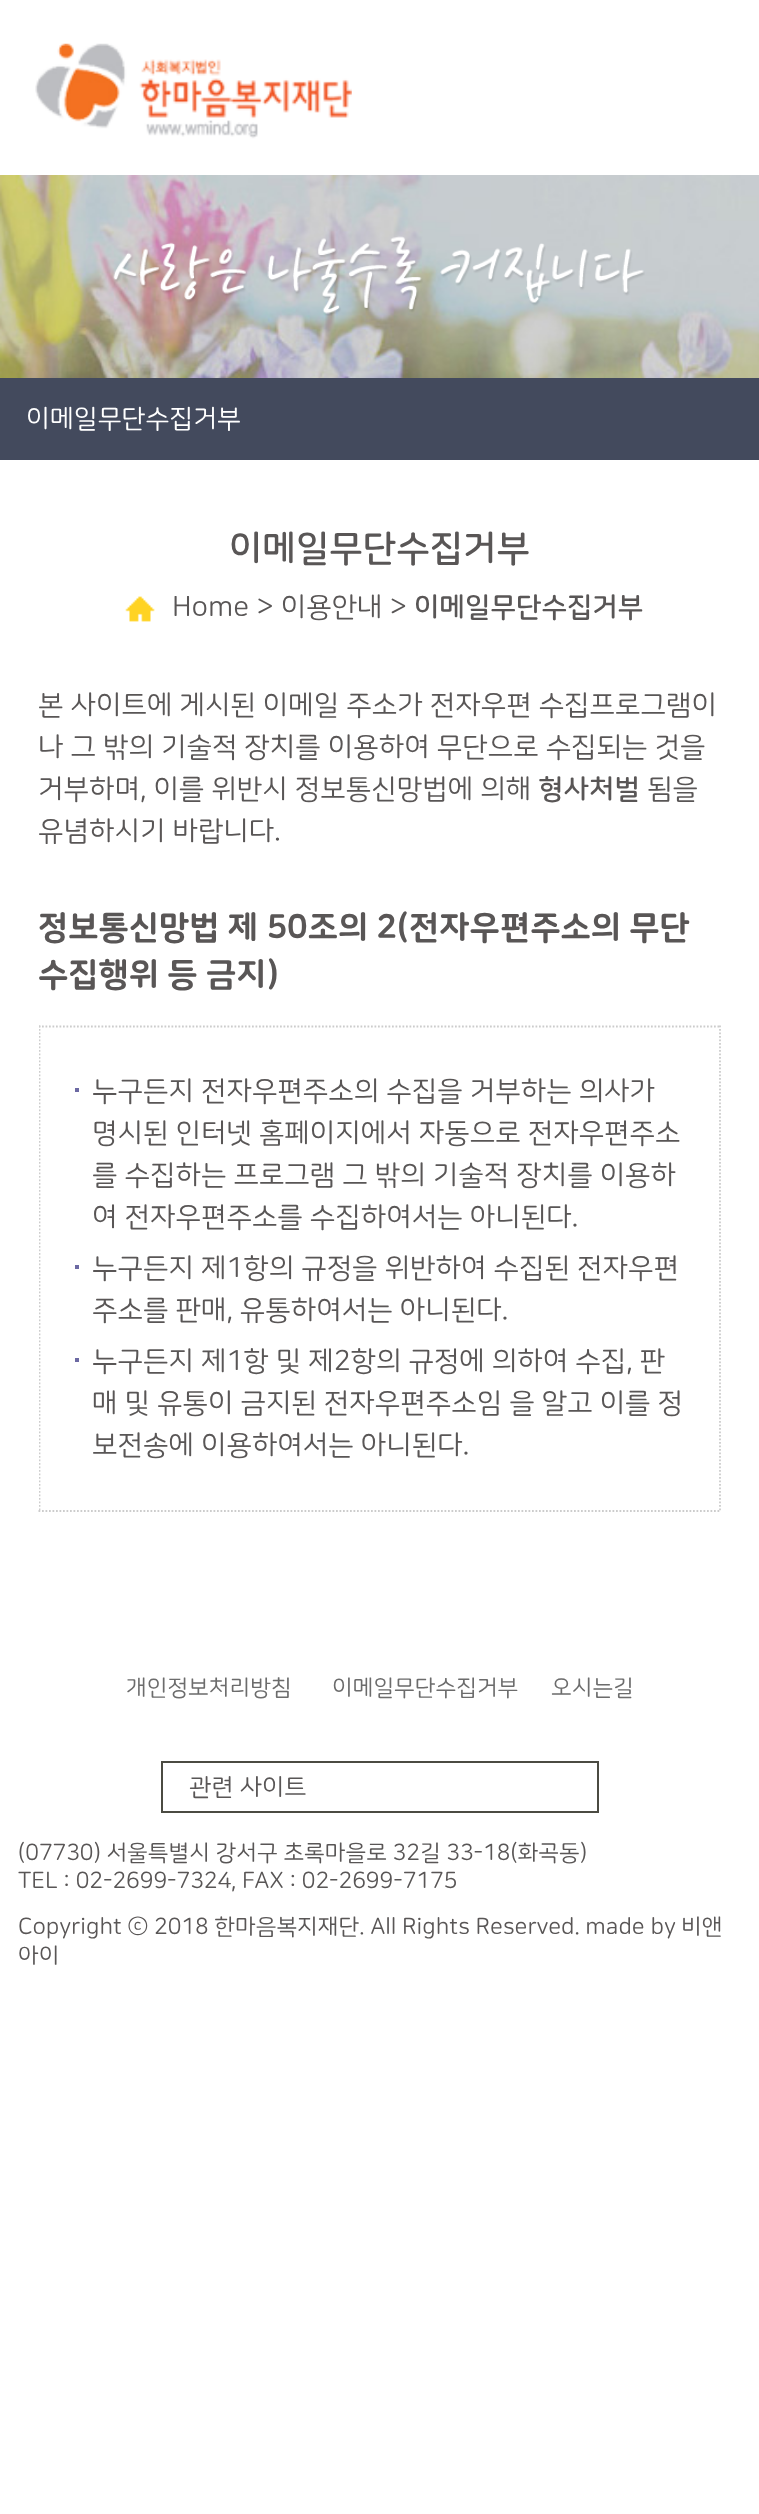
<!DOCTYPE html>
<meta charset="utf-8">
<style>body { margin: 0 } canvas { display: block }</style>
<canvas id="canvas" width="759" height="2514"></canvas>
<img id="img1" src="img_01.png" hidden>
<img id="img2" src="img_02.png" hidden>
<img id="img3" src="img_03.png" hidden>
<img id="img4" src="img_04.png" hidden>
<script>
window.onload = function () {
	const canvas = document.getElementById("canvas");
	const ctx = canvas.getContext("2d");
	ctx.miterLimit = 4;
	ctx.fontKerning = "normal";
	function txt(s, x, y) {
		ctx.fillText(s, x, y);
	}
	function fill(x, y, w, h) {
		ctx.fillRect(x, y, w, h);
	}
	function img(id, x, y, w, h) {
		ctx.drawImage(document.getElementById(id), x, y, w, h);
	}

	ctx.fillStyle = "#FFFFFF";
	fill(0, 0, 759, 2514);
	img("img1", 35, 43, 317, 96);
	img("img2", 0, 175, 759, 203);
	img("img3", 113, 236, 532, 80);
	ctx.fillStyle = "#434A5D";
	fill(0, 378, 759, 82);
	img("img4", 125, 596, 30, 26);
	ctx.save();
	ctx.beginPath();
	ctx.rect(39, 513, 682, 1087);
	ctx.clip();
	ctx.beginPath();
	ctx.moveTo(38.5, 1026.5);
	ctx.lineTo(721, 1026.5);
	ctx.strokeStyle = "#CCCCCC";
	ctx.lineWidth = 1.8;
	ctx.setLineDash([1.75, 1.75]);
	ctx.stroke();
	ctx.restore();
	ctx.beginPath();
	ctx.moveTo(720, 1025.5);
	ctx.lineTo(720, 1512);
	ctx.strokeStyle = "#CCCCCC";
	ctx.lineWidth = 1.8;
	ctx.setLineDash([1.75, 1.75]);
	ctx.stroke();
	ctx.beginPath();
	ctx.moveTo(38.5, 1511);
	ctx.lineTo(721, 1511);
	ctx.stroke();
	ctx.save();
	ctx.beginPath();
	ctx.rect(39, 513, 682, 1087);
	ctx.clip();
	ctx.beginPath();
	ctx.moveTo(39.5, 1025.5);
	ctx.lineTo(39.5, 1512);
	ctx.stroke();
	ctx.restore();
	ctx.fillStyle = "#6C69A3";
	fill(75, 1088, 4, 4);
	fill(75, 1265, 4, 4);
	fill(75, 1358, 4, 4);
	ctx.strokeStyle = "#4B4B42";
	ctx.lineWidth = 2;
	ctx.setLineDash([]);
	ctx.strokeRect(162, 1762, 436, 50);
	ctx.font = "26.25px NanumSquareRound";
	ctx.fillStyle = "#FFFFFF";
	txt("이메일무단수집거부", 26, 427);
	ctx.font = "bold 36.75px NanumSquareRound";
	ctx.fillStyle = "#595656";
	txt("이메일무단수집거부", 229, 560);
	ctx.font = "28px NanumSquareRound";
	txt("Home > 이용안내 >", 172, 616);
	ctx.font = "bold 28px NanumSquareRound";
	txt("이메일무단수집거부", 414, 616);
	ctx.font = "28px NanumSquareRound";
	txt("본 사이트에 게시된 이메일 주소가 전자우편 수집프로그램이", 38, 714);
	txt("나 그 밖의 기술적 장치를 이용하여 무단으로 수집되는 것을", 38, 756);
	txt("거부하며, 이를 위반시 정보통신망법에 의해", 38, 798);
	ctx.font = "bold 28px NanumSquareRound";
	txt("형사처벌", 538, 798);
	ctx.font = "28px NanumSquareRound";
	txt("됨을", 647, 798);
	txt("유념하시기 바랍니다.", 38, 840);
	ctx.font = "800 33.25px NanumSquareRound";
	txt("정보통신망법 제 50조의 2(전자우편주소의 무단", 38, 938);
	txt("수집행위 등 금지)", 38, 985);
	ctx.font = "28px NanumSquareRound";
	txt("누구든지 전자우편주소의 수집을 거부하는 의사가", 92, 1100);
	txt("명시된 인터넷 홈페이지에서 자동으로 전자우편주소", 92, 1142);
	txt("를 수집하는 프로그램 그 밖의 기술적 장치를 이용하", 92, 1184);
	txt("여 전자우편주소를 수집하여서는 아니된다.", 92, 1226);
	txt("누구든지 제1항의 규정을 위반하여 수집된 전자우편", 92, 1277);
	txt("주소를 판매, 유통하여서는 아니된다.", 92, 1319);
	txt("누구든지 제1항 및 제2항의 규정에 의하여 수집, 판", 92, 1370);
	txt("매 및 유통이 금지된 전자우편주소임 을 알고 이를 정", 92, 1412);
	txt("보전송에 이용하여서는 아니된다.", 92, 1454);
	ctx.font = "22.75px NanumSquareRound";
	ctx.fillStyle = "#6C6C6C";
	txt("개인정보처리방침", 126, 1695);
	txt("이메일무단수집거부", 332, 1695);
	txt("오시는길", 551, 1695);
	ctx.font = "24.5px NanumSquareRound";
	ctx.fillStyle = "#595656";
	txt("관련 사이트", 189, 1795);
	ctx.font = "22.75px NanumSquareRound";
	txt("(07730) 서울특별시 강서구 초록마을로 32길 33-18(화곡동)", 18, 1860);
	txt("TEL : 02-2699-7324, FAX : 02-2699-7175", 18, 1888);
	txt("Copyright ⓒ 2018 한마음복지재단. All Rights Reserved. made by", 18, 1934);
	txt("비앤", 681, 1934);
	txt("아이", 18, 1963);
};
</script>
